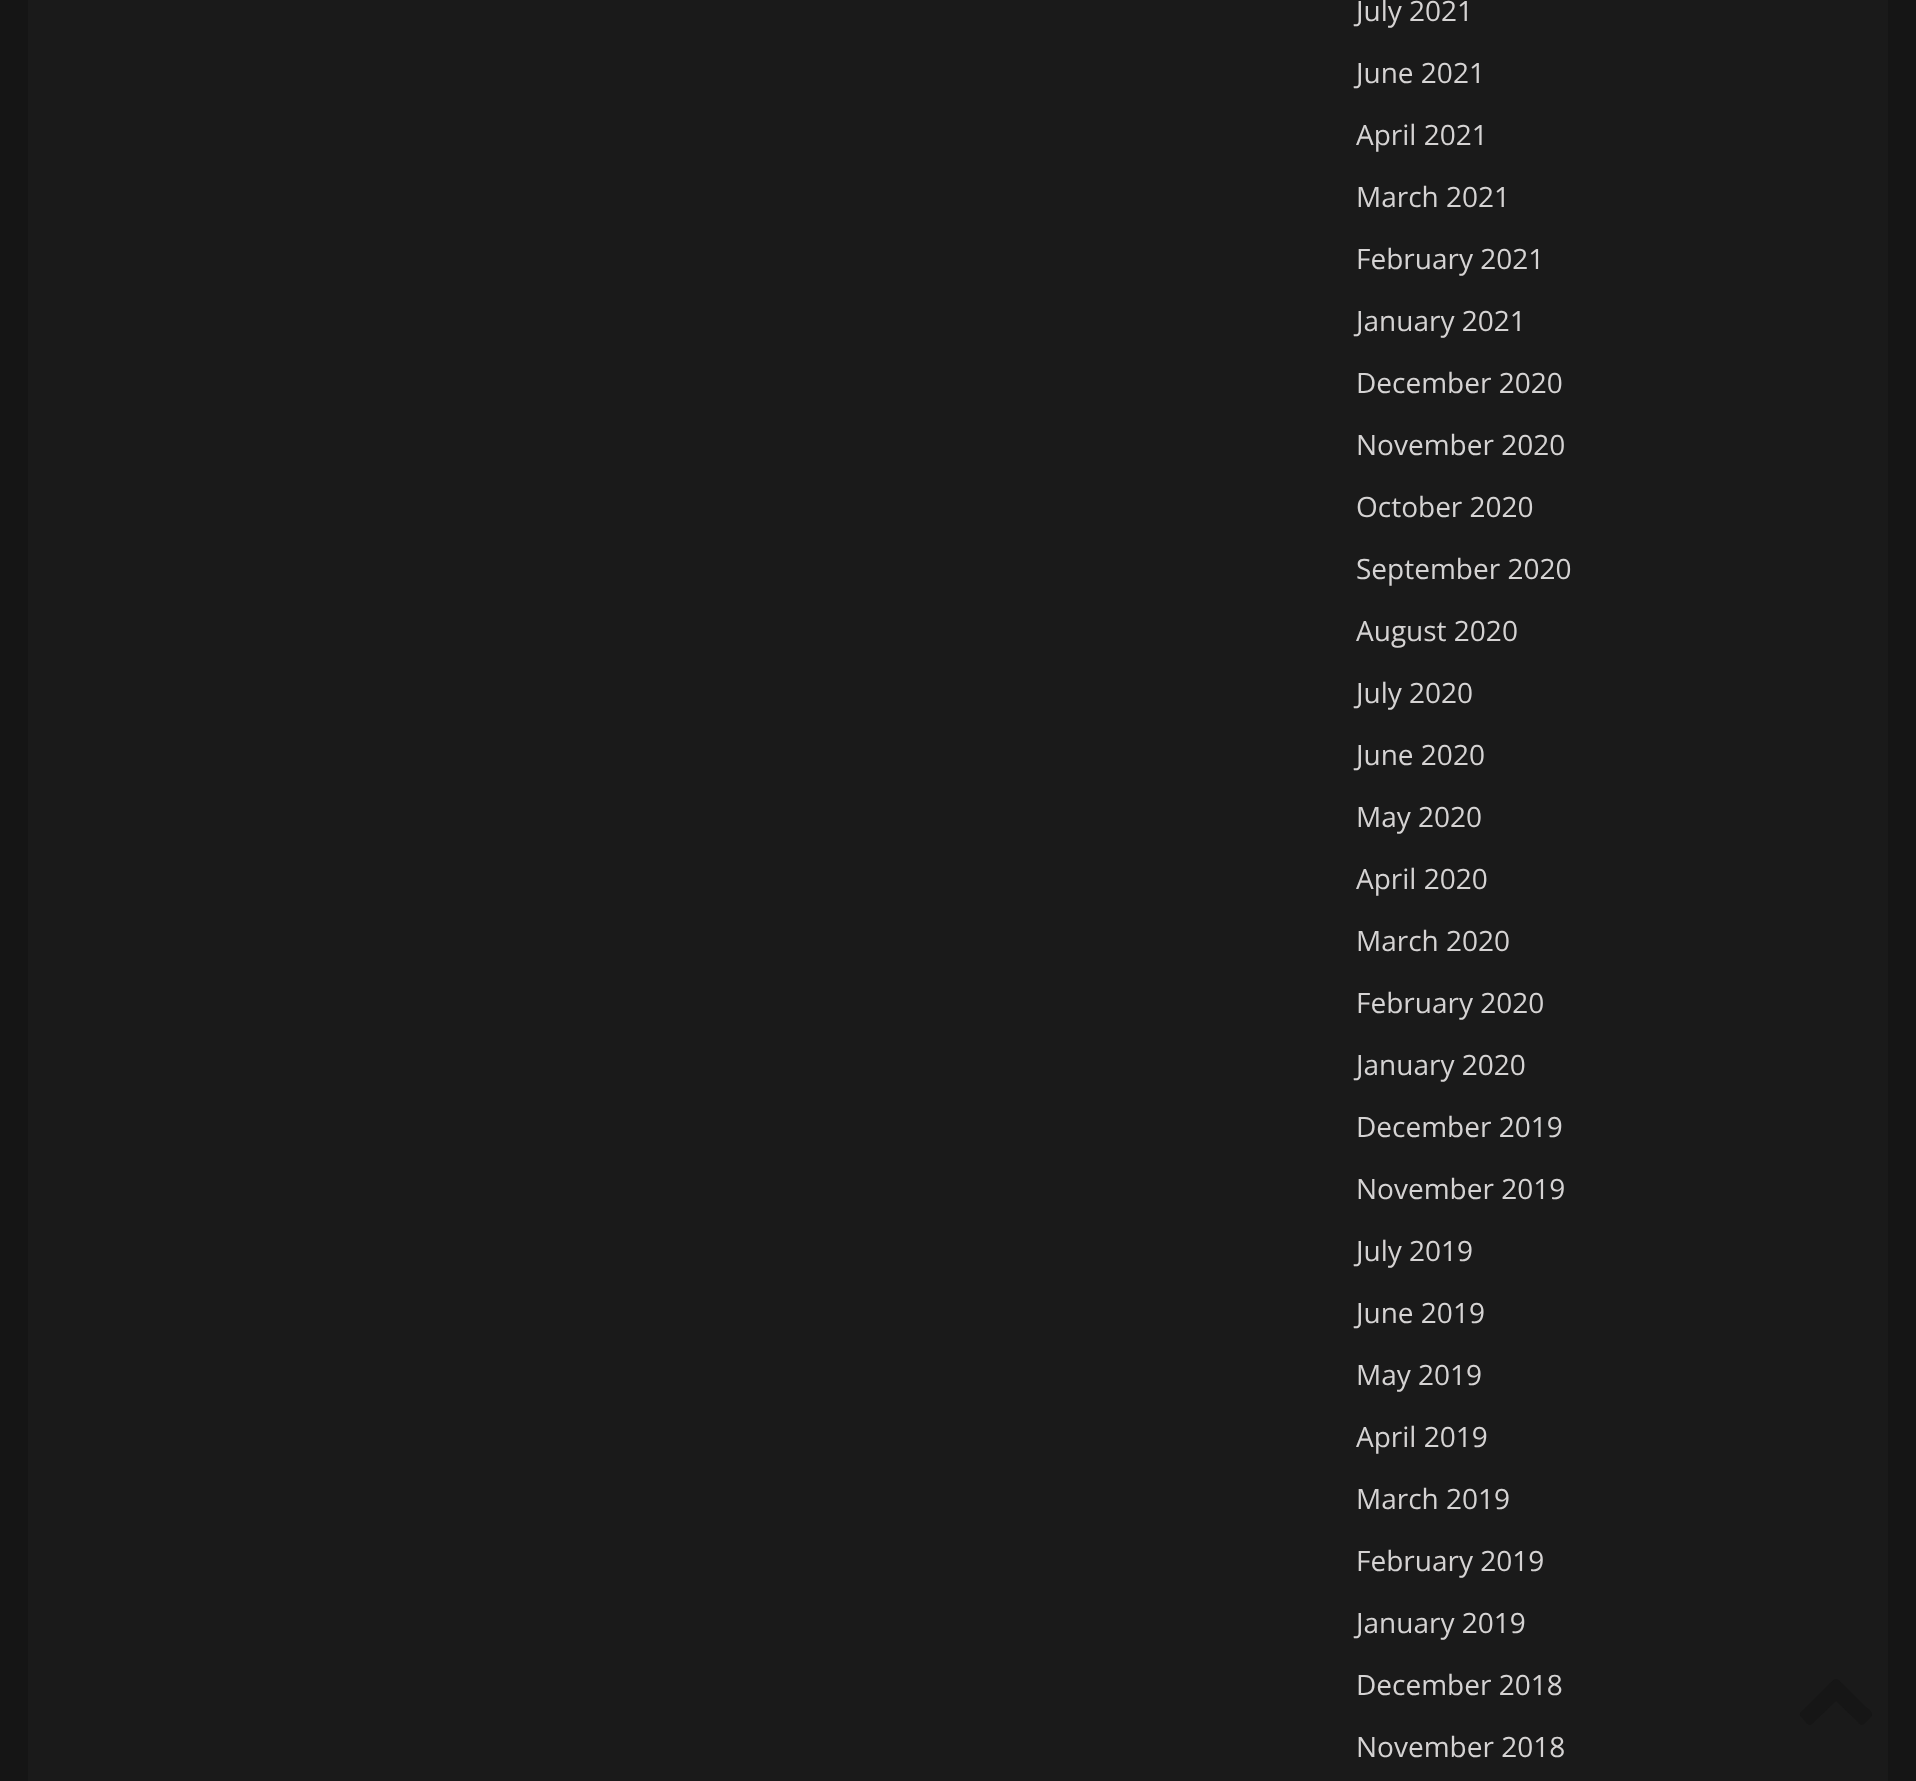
<!DOCTYPE html>
<meta charset="utf-8">
<style>body { margin: 0 } canvas { display: block }</style>
<canvas id="canvas" width="1916" height="1781"></canvas>
<script>
window.onload = function () {
	const canvas = document.getElementById("canvas");
	const ctx = canvas.getContext("2d");
	ctx.miterLimit = 4;
	ctx.fontKerning = "normal";
	function txt(s, x, y) {
		ctx.fillText(s, x, y);
	}
	function fill(x, y, w, h) {
		ctx.fillRect(x, y, w, h);
	}

	ctx.fillStyle = "#151515";
	fill(0, 0, 1916, 1781);
	ctx.fillStyle = "#1A1A1A";
	fill(28, 0, 1860, 1781);
	ctx.fillStyle = "#161616";
	ctx.beginPath();
	ctx.moveTo(1871, 1717);
	ctx.lineTo(1865, 1723);
	ctx.bezierCurveTo(1861, 1727, 1860, 1724, 1856, 1720);
	ctx.lineTo(1836, 1701);
	ctx.lineTo(1816, 1720);
	ctx.bezierCurveTo(1809, 1728, 1810, 1726, 1802, 1718);
	ctx.bezierCurveTo(1797, 1713, 1802, 1712, 1806, 1707);
	ctx.lineTo(1828, 1685);
	ctx.bezierCurveTo(1837, 1677, 1835, 1677, 1844, 1685);
	ctx.lineTo(1866, 1707);
	ctx.bezierCurveTo(1867, 1708, 1875, 1713, 1871, 1717);
	ctx.closePath();
	ctx.fill();
	ctx.font = "28px Open Sans";
	ctx.fillStyle = "#D5D3D3";
	txt("July 2021", 1356, 21);
	txt("June 2021", 1356, 83);
	txt("April 2021", 1356, 145);
	txt("March 2021", 1356, 207);
	txt("February 2021", 1356, 269);
	txt("January 2021", 1356, 331);
	txt("December 2020", 1356, 393);
	txt("November 2020", 1356, 455);
	txt("October 2020", 1356, 517);
	txt("September 2020", 1356, 579);
	txt("August 2020", 1356, 641);
	txt("July 2020", 1356, 703);
	txt("June 2020", 1356, 765);
	txt("May 2020", 1356, 827);
	txt("April 2020", 1356, 889);
	txt("March 2020", 1356, 951);
	txt("February 2020", 1356, 1013);
	txt("January 2020", 1356, 1075);
	txt("December 2019", 1356, 1137);
	txt("November 2019", 1356, 1199);
	txt("July 2019", 1356, 1261);
	txt("June 2019", 1356, 1323);
	txt("May 2019", 1356, 1385);
	txt("April 2019", 1356, 1447);
	txt("March 2019", 1356, 1509);
	txt("February 2019", 1356, 1571);
	txt("January 2019", 1356, 1633);
	txt("December 2018", 1356, 1695);
	txt("November 2018", 1356, 1757);
};
</script>
